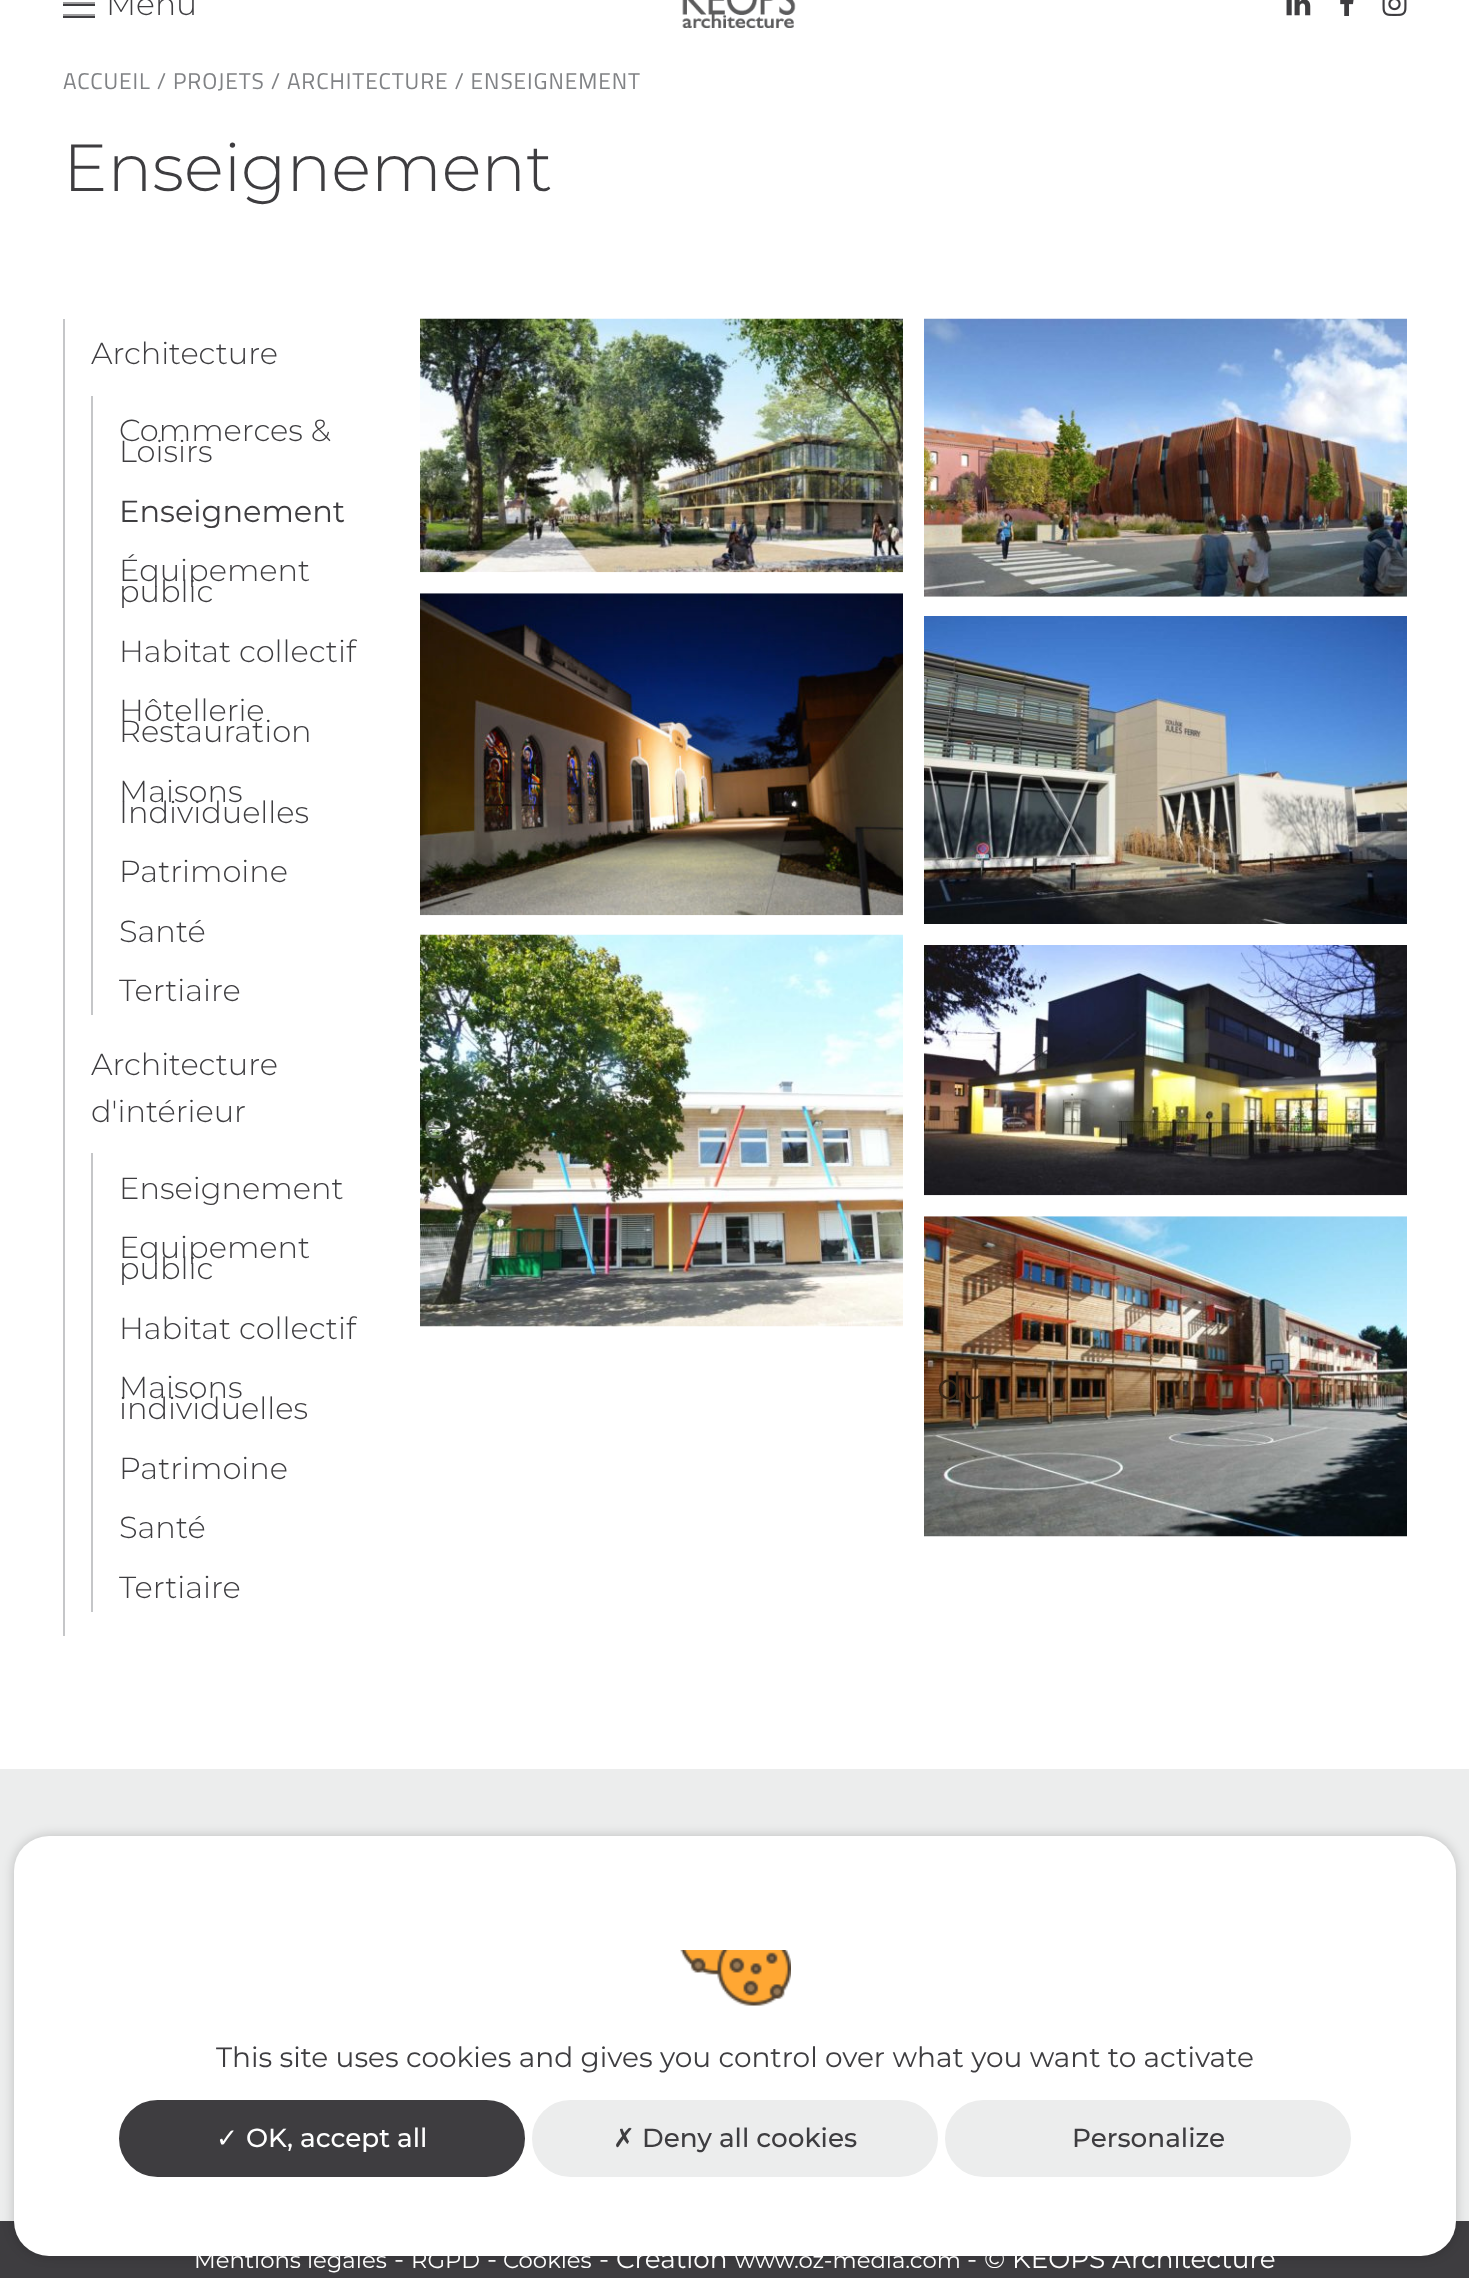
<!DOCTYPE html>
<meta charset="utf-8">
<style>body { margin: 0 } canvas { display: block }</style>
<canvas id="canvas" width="1469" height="2278"></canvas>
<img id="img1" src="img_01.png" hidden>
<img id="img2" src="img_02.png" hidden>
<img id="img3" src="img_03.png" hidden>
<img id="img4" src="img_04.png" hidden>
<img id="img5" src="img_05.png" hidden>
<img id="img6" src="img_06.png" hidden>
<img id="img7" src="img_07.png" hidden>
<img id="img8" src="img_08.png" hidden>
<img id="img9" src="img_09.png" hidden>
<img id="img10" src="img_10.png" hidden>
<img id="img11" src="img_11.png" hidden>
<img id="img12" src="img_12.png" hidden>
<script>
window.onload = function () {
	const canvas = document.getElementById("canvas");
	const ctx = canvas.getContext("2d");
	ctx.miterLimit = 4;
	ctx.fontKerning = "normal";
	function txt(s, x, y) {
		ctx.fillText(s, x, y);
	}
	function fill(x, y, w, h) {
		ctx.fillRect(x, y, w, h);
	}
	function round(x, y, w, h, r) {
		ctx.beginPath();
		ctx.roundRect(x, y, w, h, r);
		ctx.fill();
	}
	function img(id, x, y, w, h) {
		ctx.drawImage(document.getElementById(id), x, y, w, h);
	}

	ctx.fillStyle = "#FFFFFF";
	fill(0, 0, 1469, 2278);
	ctx.fillStyle = "#3E3D40";
	fill(63, 4, 32, 2);
	ctx.fillStyle = "#9F9EA0";
	fill(63, 2, 32, 2);
	ctx.fillStyle = "#3E3D40";
	fill(63, 16, 32, 2);
	ctx.fillStyle = "#9F9EA0";
	fill(63, 14, 32, 2);
	img("img1", 682, 0, 114, 28);
	img("img2", 1286, 0, 25, 16);
	img("img3", 1340, 0, 14, 16);
	img("img4", 1382, 0, 25, 16);
	ctx.fillStyle = "#C5C6C8";
	fill(63, 319, 2, 1317);
	fill(91, 396, 2, 619);
	fill(91, 1153, 2, 459);
	img("img5", 420, 318, 483, 255);
	img("img6", 924, 318, 483, 279);
	img("img7", 420, 593, 483, 323);
	img("img8", 924, 616, 483, 308);
	img("img9", 420, 934, 483, 393);
	img("img10", 924, 945, 483, 251);
	img("img11", 924, 1216, 483, 321);
	ctx.fillStyle = "#ECEDED";
	fill(0, 1769, 1469, 452);
	ctx.fillStyle = "#3E3D40";
	fill(0, 2221, 1469, 57);
	ctx.fillStyle = "rgba(0, 0, 0, 0.2)";
	ctx.filter = "blur(6px)";
	ctx.beginPath();
	ctx.roundRect(14, 1836, 1442, 420, 35);
	ctx.fill();
	ctx.filter = "none";
	ctx.fillStyle = "#FFFFFF";
	round(14, 1836, 1442, 420, 35);
	img("img12", 680, 1950, 111, 56);
	ctx.fillStyle = "#3E3D40";
	ctx.beginPath();
	ctx.roundRect(120, 2101, 404, 75, 37.5);
	ctx.fill();
	ctx.strokeStyle = "#3E3D40";
	ctx.lineWidth = 2;
	ctx.stroke();
	ctx.fillStyle = "#ECEDED";
	ctx.beginPath();
	ctx.roundRect(533, 2101, 404, 75, 37.5);
	ctx.fill();
	ctx.strokeStyle = "#ECEDED";
	ctx.stroke();
	ctx.beginPath();
	ctx.roundRect(946, 2101, 404, 75, 37.5);
	ctx.fill();
	ctx.stroke();
	ctx.font = "300 31.5px Montserrat";
	ctx.fillStyle = "#3E3D40";
	txt("Menu", 106, 15);
	ctx.letterSpacing = "0.9px";
	ctx.font = "22.75px Titillium Web";
	ctx.fillStyle = "#808285";
	txt("ACCUEIL / PROJETS / ARCHITECTURE / ENSEIGNEMENT", 63, 89);
	ctx.letterSpacing = "0px";
	ctx.font = "300 66.5px Montserrat";
	ctx.fillStyle = "#3E3D40";
	txt("Enseignement", 63, 191);
	ctx.font = "300 30.5px Montserrat";
	txt("Architecture", 91, 364);
	txt("Commerces &", 119, 441);
	txt("Loisirs", 119, 462);
	ctx.font = "30.5px Montserrat";
	txt("Enseignement", 119, 522);
	ctx.font = "300 30.5px Montserrat";
	txt("Équipement", 119, 581);
	txt("public", 119, 602);
	txt("Habitat collectif", 119, 662);
	txt("Hôtellerie", 119, 721);
	txt("Restauration", 119, 742);
	txt("Maisons", 119, 802);
	txt("Individuelles", 119, 823);
	txt("Patrimoine", 119, 882);
	txt("Santé", 119, 942);
	txt("Tertiaire", 119, 1001);
	txt("Architecture", 91, 1075);
	txt("d'intérieur", 91, 1122);
	txt("Enseignement", 119, 1199);
	txt("Equipement", 119, 1258);
	txt("public", 119, 1279);
	txt("Habitat collectif", 119, 1339);
	txt("Maisons", 119, 1398);
	txt("individuelles", 119, 1419);
	txt("Patrimoine", 119, 1479);
	txt("Santé", 119, 1538);
	txt("Tertiaire", 119, 1598);
	ctx.font = "37px Montserrat";
	ctx.fillStyle = "#626F5E";
	txt("e", 424, 1138);
	ctx.fillStyle = "#5A5F45";
	txt("t", 428, 1187);
	ctx.fillStyle = "#3B2817";
	txt("du", 937, 1399);
	ctx.font = "22.75px Montserrat";
	ctx.fillStyle = "#FFFFFF";
	txt("Mentions légales", 194, 2268);
	ctx.font = "26.25px Montserrat";
	txt("-", 394, 2268);
	ctx.font = "22.75px Montserrat";
	txt("RGPD", 411, 2268);
	ctx.font = "26.25px Montserrat";
	txt("-", 487, 2268);
	ctx.font = "22.75px Montserrat";
	txt("Cookies", 503, 2268);
	ctx.font = "26.25px Montserrat";
	txt("- Création", 599, 2268);
	ctx.font = "22.75px Montserrat";
	txt("www.oz-media.com", 735, 2268);
	ctx.font = "26.25px Montserrat";
	txt("- © KEOPS Architecture", 967, 2268);
	ctx.font = "28px Montserrat";
	ctx.fillStyle = "#3E3D40";
	txt("This site uses cookies and gives you control over what you want to activate", 216, 2067);
	ctx.font = "26.25px DejaVu Sans";
	ctx.fillStyle = "#FFFFFF";
	txt("✓", 216, 2147);
	ctx.font = "500 26.25px Montserrat";
	txt("OK, accept all", 246, 2147);
	ctx.font = "26.25px DejaVu Sans";
	ctx.fillStyle = "#3E3D40";
	txt("✗", 613, 2147);
	ctx.font = "500 26.25px Montserrat";
	txt("Deny all cookies", 642, 2147);
	txt("Personalize", 1072, 2147);
};
</script>
